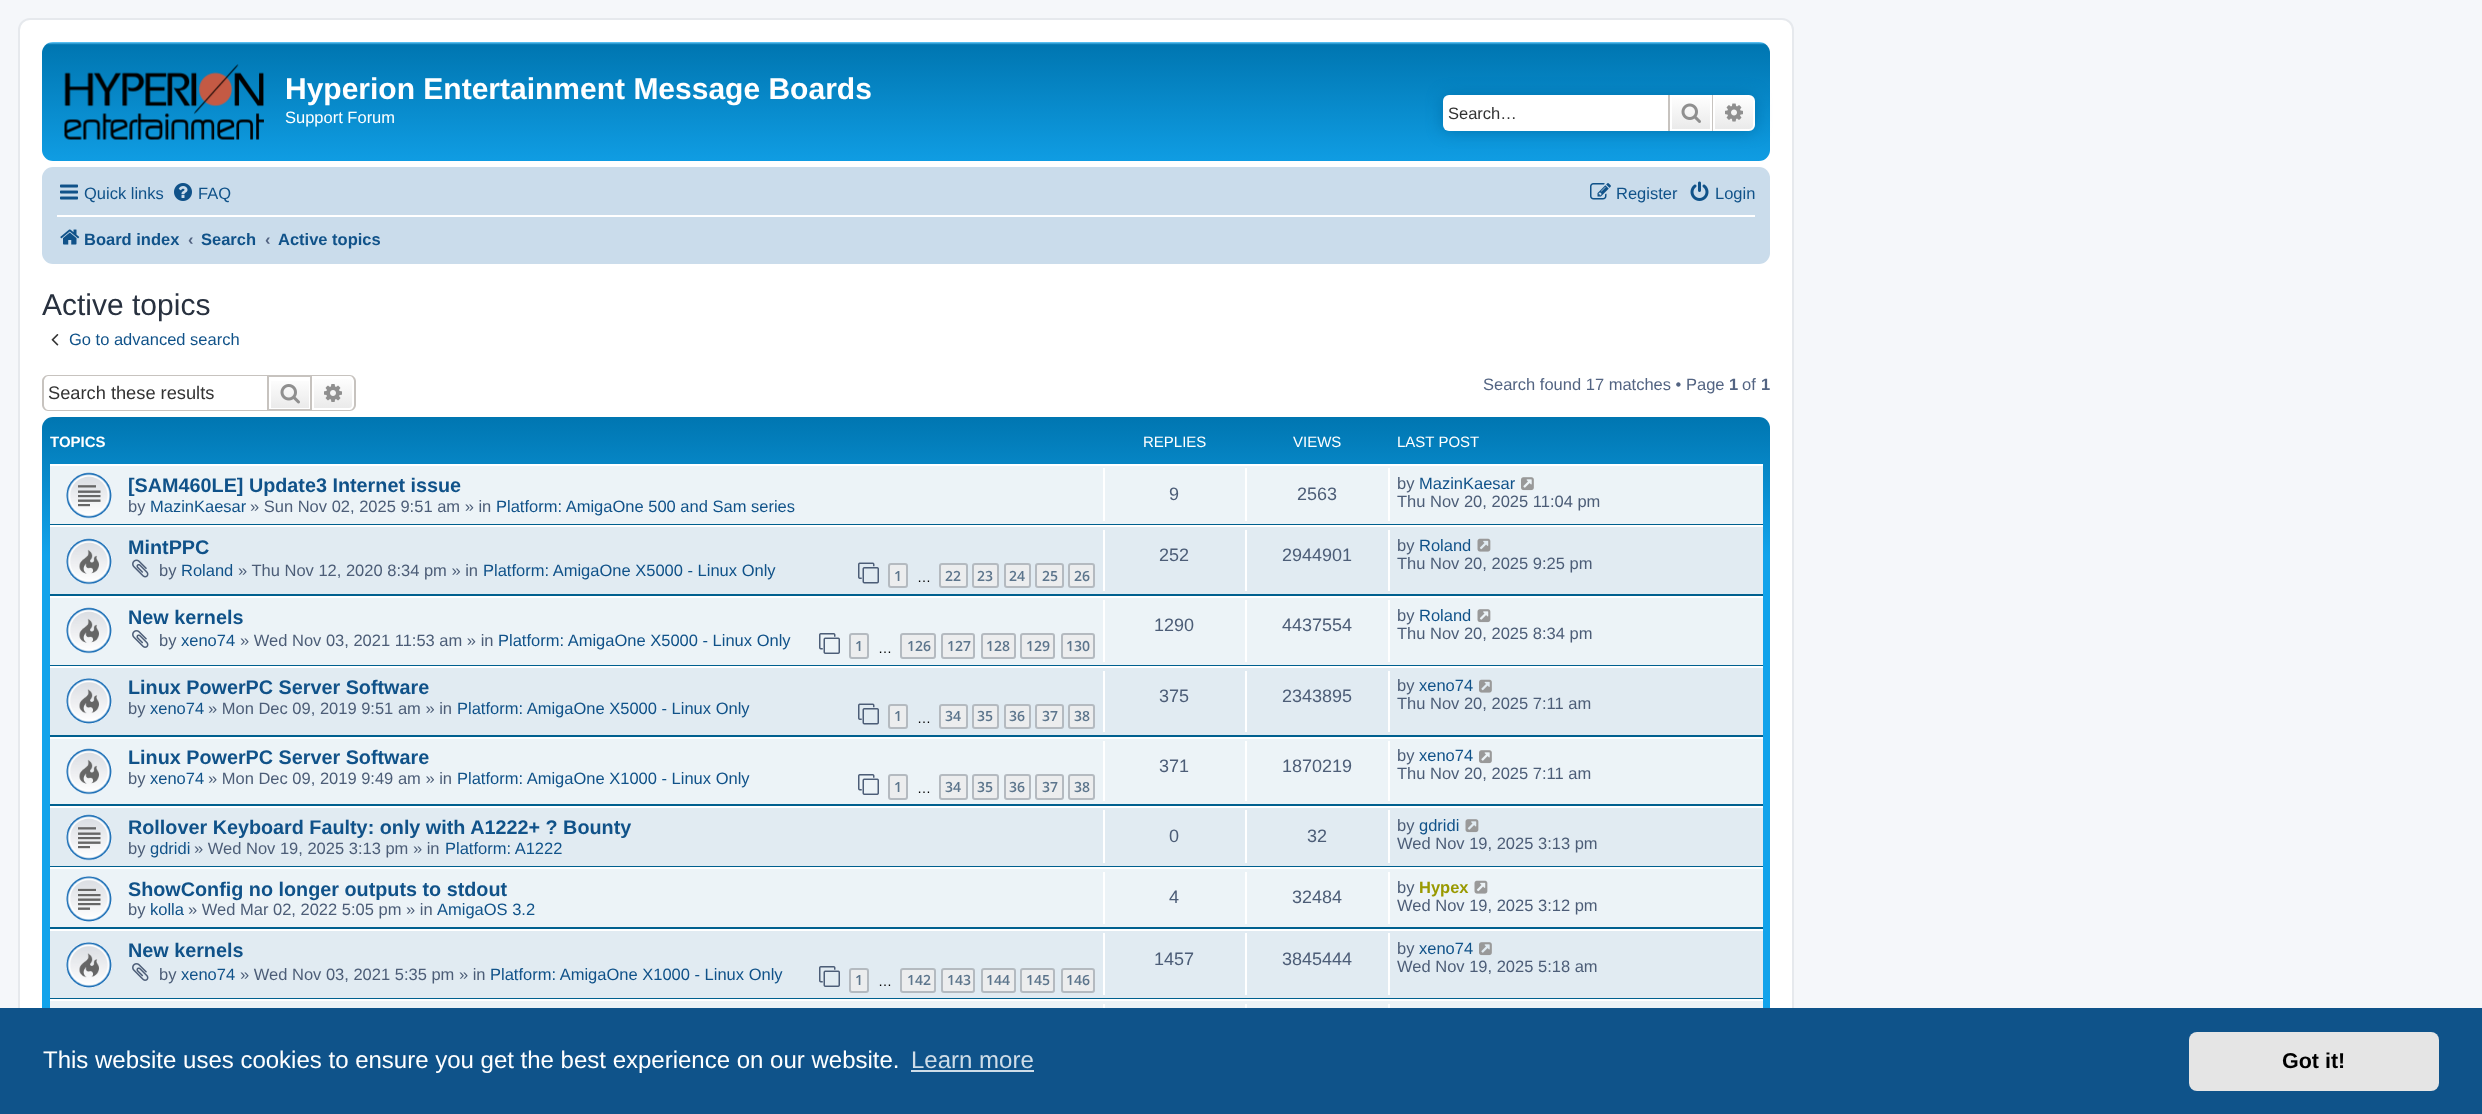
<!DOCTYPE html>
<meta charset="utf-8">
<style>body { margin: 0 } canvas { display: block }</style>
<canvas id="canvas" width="2482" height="1114"></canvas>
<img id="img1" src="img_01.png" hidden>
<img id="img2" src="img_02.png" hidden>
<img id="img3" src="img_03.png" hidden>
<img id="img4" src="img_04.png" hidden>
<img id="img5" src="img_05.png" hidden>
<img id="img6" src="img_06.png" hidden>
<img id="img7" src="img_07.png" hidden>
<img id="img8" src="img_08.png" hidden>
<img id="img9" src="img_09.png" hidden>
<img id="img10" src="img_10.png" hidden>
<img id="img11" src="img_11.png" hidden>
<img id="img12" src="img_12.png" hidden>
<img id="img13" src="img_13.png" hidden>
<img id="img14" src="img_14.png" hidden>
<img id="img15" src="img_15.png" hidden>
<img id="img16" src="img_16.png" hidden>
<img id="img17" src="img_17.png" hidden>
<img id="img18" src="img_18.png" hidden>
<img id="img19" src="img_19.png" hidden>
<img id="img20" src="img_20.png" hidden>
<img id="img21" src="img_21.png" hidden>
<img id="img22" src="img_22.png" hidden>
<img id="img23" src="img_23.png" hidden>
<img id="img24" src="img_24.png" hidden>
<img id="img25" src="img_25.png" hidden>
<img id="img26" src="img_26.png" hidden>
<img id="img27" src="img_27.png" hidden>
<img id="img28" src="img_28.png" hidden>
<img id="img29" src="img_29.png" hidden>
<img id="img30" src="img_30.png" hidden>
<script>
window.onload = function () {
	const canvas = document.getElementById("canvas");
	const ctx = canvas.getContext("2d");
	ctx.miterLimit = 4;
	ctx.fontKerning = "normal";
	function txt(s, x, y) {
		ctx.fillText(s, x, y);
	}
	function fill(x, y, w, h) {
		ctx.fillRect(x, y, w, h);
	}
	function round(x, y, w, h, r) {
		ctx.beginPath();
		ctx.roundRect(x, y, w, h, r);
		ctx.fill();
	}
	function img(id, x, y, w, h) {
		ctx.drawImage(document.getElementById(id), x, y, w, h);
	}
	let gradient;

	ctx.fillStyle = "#F5F7FA";
	fill(0, 0, 2482, 1114);
	ctx.fillStyle = "#FFFFFF";
	ctx.beginPath();
	ctx.roundRect(19, 19, 1774, 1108, 11);
	ctx.fill();
	ctx.strokeStyle = "#E6E9ED";
	ctx.lineWidth = 2;
	ctx.stroke();
	gradient = ctx.createLinearGradient(906, 42, 906, 180);
	gradient.addColorStop(0, "#6ACEFF");
	gradient.addColorStop(0.02, "#0076B1");
	gradient.addColorStop(1, "#12A3EB");
	ctx.fillStyle = gradient;
	round(42, 42, 1728, 119, 11);
	img("img1", 64, 64, 200, 76);
	ctx.fillStyle = "#0075B0";
	ctx.filter = "blur(7.5px)";
	ctx.beginPath();
	ctx.roundRect(1443, 95, 312, 36, 6);
	ctx.fill();
	ctx.filter = "none";
	ctx.fillStyle = "#FFFFFF";
	ctx.beginPath();
	ctx.roundRect(1443, 95, 225, 36, [6, 0, 0, 6]);
	ctx.fill();
	gradient = ctx.createLinearGradient(1691, 95, 1691, 131);
	gradient.addColorStop(0, "#FFFFFF");
	gradient.addColorStop(1, "#E9E9E9");
	ctx.fillStyle = gradient;
	fill(1672, 97, 38, 32);
	ctx.strokeStyle = "#FFFFFF";
	ctx.strokeRect(1671, 96, 40, 34);
	ctx.fillStyle = "#C7C3BF";
	fill(1712, 95, 1, 36);
	fill(1668, 95, 2, 36);
	img("img2", 1681, 103, 20, 20);
	gradient = ctx.createLinearGradient(1734, 95, 1734, 131);
	gradient.addColorStop(0, "#FFFFFF");
	gradient.addColorStop(1, "#E9E9E9");
	ctx.fillStyle = gradient;
	ctx.beginPath();
	ctx.roundRect(1714, 96, 40, 34, [0, 5, 5, 0]);
	ctx.fill();
	ctx.stroke();
	img("img3", 1725, 103, 18, 19);
	ctx.fillStyle = "#CADCEB";
	round(42, 167, 1728, 97, 11);
	img("img4", 60, 184, 18, 16);
	img("img5", 174, 183, 18, 18);
	img("img6", 1590, 183, 21, 17);
	img("img7", 1690, 181, 19, 20);
	ctx.fillStyle = "#FFFFFF";
	fill(57, 215, 1698, 2);
	img("img8", 60, 229, 20, 16);
	img("img9", 51, 334, 8, 12);
	ctx.fillStyle = "#C7C3BF";
	ctx.beginPath();
	ctx.moveTo(48, 375);
	ctx.lineTo(267, 375);
	ctx.lineTo(267, 411);
	ctx.lineTo(48, 411);
	ctx.bezierCurveTo(45, 411, 42, 408, 42, 405);
	ctx.lineTo(42, 381);
	ctx.bezierCurveTo(42, 378, 45, 375, 48, 375);
	ctx.closePath();
	ctx.moveTo(48, 376);
	ctx.lineTo(267, 376);
	ctx.lineTo(267, 410);
	ctx.lineTo(48, 410);
	ctx.bezierCurveTo(46, 410, 44, 407, 44, 405);
	ctx.lineTo(44, 381);
	ctx.bezierCurveTo(44, 379, 46, 376, 48, 376);
	ctx.closePath();
	ctx.fill("evenodd");
	gradient = ctx.createLinearGradient(290, 377, 290, 410);
	gradient.addColorStop(0, "#FFFFFF");
	gradient.addColorStop(1, "#E9E9E9");
	ctx.fillStyle = gradient;
	fill(271, 381, 38, 27);
	ctx.strokeStyle = "#C7C3BF";
	ctx.strokeRect(268, 376, 43, 34);
	img("img10", 280, 384, 20, 20);
	gradient = ctx.createLinearGradient(333, 377, 333, 410);
	gradient.addColorStop(0, "#FFFFFF");
	gradient.addColorStop(1, "#E9E9E9");
	ctx.fillStyle = gradient;
	ctx.beginPath();
	ctx.roundRect(313, 378, 40, 31, [0, 4, 4, 0]);
	ctx.fill();
	ctx.strokeStyle = "#FFFFFF";
	ctx.stroke();
	ctx.fillStyle = "#C7C3BF";
	ctx.beginPath();
	ctx.moveTo(312, 375);
	ctx.lineTo(350, 375);
	ctx.bezierCurveTo(353, 375, 356, 378, 356, 381);
	ctx.lineTo(356, 405);
	ctx.bezierCurveTo(356, 408, 353, 411, 350, 411);
	ctx.lineTo(312, 411);
	ctx.closePath();
	ctx.moveTo(312, 376);
	ctx.lineTo(350, 376);
	ctx.bezierCurveTo(352, 376, 354, 379, 354, 381);
	ctx.lineTo(354, 405);
	ctx.bezierCurveTo(354, 407, 352, 410, 350, 410);
	ctx.lineTo(312, 410);
	ctx.closePath();
	ctx.fill("evenodd");
	img("img11", 324, 384, 18, 18);
	gradient = ctx.createLinearGradient(906, 417, 906, 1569);
	gradient.addColorStop(0, "#6ACEFF");
	gradient.addColorStop(0, "#0076B1");
	gradient.addColorStop(0.12, "#12A3EB");
	gradient.addColorStop(1, "#12A3EB");
	ctx.fillStyle = gradient;
	round(42, 417, 1728, 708, 11);
	ctx.fillStyle = "#ECF3F7";
	fill(50, 466, 1713, 58);
	ctx.fillStyle = "#FFFFFF";
	fill(50, 464, 1713, 2);
	ctx.fillStyle = "#00608F";
	fill(50, 524, 1713, 1);
	img("img12", 66, 472, 46, 47);
	ctx.fillStyle = "#FFFFFF";
	fill(1103, 468, 2, 53);
	fill(1245, 468, 2, 53);
	fill(1388, 468, 2, 53);
	img("img13", 1521, 477, 13, 14);
	ctx.fillStyle = "#E1EBF2";
	fill(50, 527, 1713, 67);
	ctx.fillStyle = "#FFFFFF";
	fill(50, 525, 1713, 2);
	ctx.fillStyle = "#00608F";
	fill(50, 594, 1713, 2);
	img("img14", 66, 538, 46, 47);
	img("img15", 132, 559, 17, 19);
	img("img16", 858, 562, 21, 22);
	ctx.fillStyle = "#ECEDEE";
	ctx.beginPath();
	ctx.roundRect(889, 564, 18, 23, 2);
	ctx.fill();
	ctx.strokeStyle = "#B4BAC0";
	ctx.stroke();
	ctx.beginPath();
	ctx.roundRect(940, 564, 27, 23, 2);
	ctx.fill();
	ctx.stroke();
	ctx.beginPath();
	ctx.roundRect(973, 564, 25, 23, 2);
	ctx.fill();
	ctx.stroke();
	ctx.beginPath();
	ctx.roundRect(1005, 564, 25, 23, 2);
	ctx.fill();
	ctx.stroke();
	ctx.beginPath();
	ctx.roundRect(1036, 564, 27, 23, 2);
	ctx.fill();
	ctx.stroke();
	ctx.beginPath();
	ctx.roundRect(1069, 564, 25, 23, 2);
	ctx.fill();
	ctx.stroke();
	ctx.fillStyle = "#FFFFFF";
	fill(1103, 530, 2, 61);
	fill(1245, 530, 2, 61);
	fill(1388, 530, 2, 61);
	img("img17", 1477, 538, 14, 14);
	ctx.fillStyle = "#ECF3F7";
	fill(50, 598, 1713, 67);
	ctx.fillStyle = "#FFFFFF";
	fill(50, 596, 1713, 2);
	ctx.fillStyle = "#00608F";
	fill(50, 665, 1713, 1);
	img("img18", 66, 607, 46, 47);
	img("img19", 132, 630, 17, 18);
	img("img20", 819, 633, 21, 21);
	ctx.fillStyle = "#ECEDEE";
	ctx.beginPath();
	ctx.roundRect(850, 634, 18, 24, 2);
	ctx.fill();
	ctx.stroke();
	ctx.beginPath();
	ctx.roundRect(901, 634, 34, 24, 2);
	ctx.fill();
	ctx.stroke();
	ctx.beginPath();
	ctx.roundRect(942, 634, 32, 24, 2);
	ctx.fill();
	ctx.stroke();
	ctx.beginPath();
	ctx.roundRect(982, 634, 33, 24, 2);
	ctx.fill();
	ctx.stroke();
	ctx.beginPath();
	ctx.roundRect(1021, 634, 33, 24, 2);
	ctx.fill();
	ctx.stroke();
	ctx.beginPath();
	ctx.roundRect(1062, 634, 32, 24, 2);
	ctx.fill();
	ctx.stroke();
	ctx.fillStyle = "#FFFFFF";
	fill(1103, 600, 2, 62);
	fill(1245, 600, 2, 62);
	fill(1388, 600, 2, 62);
	img("img21", 1477, 609, 14, 14);
	ctx.fillStyle = "#E1EBF2";
	fill(50, 668, 1713, 67);
	ctx.fillStyle = "#FFFFFF";
	fill(50, 666, 1713, 2);
	ctx.fillStyle = "#00608F";
	fill(50, 735, 1713, 2);
	img("img22", 66, 678, 46, 46);
	img("img16", 858, 703, 21, 22);
	ctx.fillStyle = "#ECEDEE";
	ctx.beginPath();
	ctx.roundRect(889, 705, 18, 23, 2);
	ctx.fill();
	ctx.stroke();
	ctx.beginPath();
	ctx.roundRect(940, 705, 27, 23, 2);
	ctx.fill();
	ctx.stroke();
	ctx.beginPath();
	ctx.roundRect(973, 705, 25, 23, 2);
	ctx.fill();
	ctx.stroke();
	ctx.beginPath();
	ctx.roundRect(1005, 705, 25, 23, 2);
	ctx.fill();
	ctx.stroke();
	ctx.beginPath();
	ctx.roundRect(1036, 705, 27, 23, 2);
	ctx.fill();
	ctx.stroke();
	ctx.beginPath();
	ctx.roundRect(1069, 705, 25, 23, 2);
	ctx.fill();
	ctx.stroke();
	ctx.fillStyle = "#FFFFFF";
	fill(1103, 671, 2, 61);
	fill(1245, 671, 2, 61);
	fill(1388, 671, 2, 61);
	img("img23", 1479, 679, 13, 14);
	ctx.fillStyle = "#ECF3F7";
	fill(50, 739, 1713, 65);
	ctx.fillStyle = "#FFFFFF";
	fill(50, 737, 1713, 2);
	ctx.fillStyle = "#00608F";
	fill(50, 804, 1713, 2);
	img("img18", 66, 748, 46, 47);
	img("img20", 858, 774, 21, 21);
	ctx.fillStyle = "#ECEDEE";
	ctx.beginPath();
	ctx.roundRect(889, 775, 18, 24, 2);
	ctx.fill();
	ctx.stroke();
	ctx.beginPath();
	ctx.roundRect(940, 775, 27, 24, 2);
	ctx.fill();
	ctx.stroke();
	ctx.beginPath();
	ctx.roundRect(973, 775, 25, 24, 2);
	ctx.fill();
	ctx.stroke();
	ctx.beginPath();
	ctx.roundRect(1005, 775, 25, 24, 2);
	ctx.fill();
	ctx.stroke();
	ctx.beginPath();
	ctx.roundRect(1036, 775, 27, 24, 2);
	ctx.fill();
	ctx.stroke();
	ctx.beginPath();
	ctx.roundRect(1069, 775, 25, 24, 2);
	ctx.fill();
	ctx.stroke();
	ctx.fillStyle = "#FFFFFF";
	fill(1103, 741, 2, 60);
	fill(1245, 741, 2, 60);
	fill(1388, 741, 2, 60);
	img("img13", 1479, 750, 13, 14);
	ctx.fillStyle = "#E1EBF2";
	fill(50, 808, 1713, 58);
	ctx.fillStyle = "#FFFFFF";
	fill(50, 806, 1713, 2);
	ctx.fillStyle = "#00608F";
	fill(50, 866, 1713, 1);
	img("img24", 66, 814, 46, 47);
	ctx.fillStyle = "#FFFFFF";
	fill(1103, 810, 2, 53);
	fill(1245, 810, 2, 53);
	fill(1388, 810, 2, 53);
	img("img25", 1465, 819, 14, 14);
	ctx.fillStyle = "#ECF3F7";
	fill(50, 869, 1713, 58);
	ctx.fillStyle = "#FFFFFF";
	fill(50, 867, 1713, 2);
	ctx.fillStyle = "#00608F";
	fill(50, 927, 1713, 2);
	img("img26", 66, 876, 46, 46);
	ctx.fillStyle = "#FFFFFF";
	fill(1103, 872, 2, 52);
	fill(1245, 872, 2, 52);
	fill(1388, 872, 2, 52);
	img("img27", 1474, 880, 14, 14);
	ctx.fillStyle = "#E1EBF2";
	fill(50, 931, 1713, 67);
	ctx.fillStyle = "#FFFFFF";
	fill(50, 929, 1713, 2);
	ctx.fillStyle = "#00608F";
	fill(50, 998, 1713, 1);
	img("img22", 66, 942, 46, 46);
	img("img28", 132, 963, 17, 18);
	img("img29", 819, 966, 21, 21);
	ctx.fillStyle = "#ECEDEE";
	ctx.beginPath();
	ctx.roundRect(850, 969, 18, 23, 2);
	ctx.fill();
	ctx.stroke();
	ctx.beginPath();
	ctx.roundRect(901, 969, 34, 23, 2);
	ctx.fill();
	ctx.stroke();
	ctx.beginPath();
	ctx.roundRect(942, 969, 32, 23, 2);
	ctx.fill();
	ctx.stroke();
	ctx.beginPath();
	ctx.roundRect(982, 969, 33, 23, 2);
	ctx.fill();
	ctx.stroke();
	ctx.beginPath();
	ctx.roundRect(1021, 969, 33, 23, 2);
	ctx.fill();
	ctx.stroke();
	ctx.beginPath();
	ctx.roundRect(1062, 969, 32, 23, 2);
	ctx.fill();
	ctx.stroke();
	ctx.fillStyle = "#FFFFFF";
	fill(1103, 933, 2, 62);
	fill(1245, 933, 2, 62);
	fill(1388, 933, 2, 62);
	img("img30", 1479, 942, 13, 14);
	ctx.fillStyle = "#ECF3F7";
	fill(50, 1001, 1713, 7);
	ctx.fillStyle = "#FFFFFF";
	fill(50, 999, 1713, 2);
	fill(1103, 1004, 2, 4);
	fill(1245, 1004, 2, 4);
	fill(1388, 1004, 2, 4);
	ctx.fillStyle = "#0F538A";
	fill(0, 1008, 2482, 106);
	ctx.fillStyle = "#CFDDE8";
	fill(911, 1070, 123, 2);
	ctx.fillStyle = "#E5E5E5";
	round(2189, 1032, 250, 59, 8);
	ctx.font = "bold 30px Liberation Sans";
	ctx.fillStyle = "#FFFFFF";
	txt("Hyperion Entertainment Message Boards", 285, 99);
	ctx.font = "16.5px Liberation Sans";
	txt("Support Forum", 285, 123);
	ctx.fillStyle = "#333333";
	txt("Search…", 1448, 119);
	ctx.fillStyle = "#105289";
	txt("Quick links", 84, 199);
	txt("FAQ", 198, 199);
	txt("Register", 1616, 199);
	txt("Login", 1715, 199);
	ctx.font = "bold 16.5px Liberation Sans";
	txt("Board index", 84, 245);
	ctx.fillStyle = "#536482";
	txt("‹", 188, 245);
	ctx.fillStyle = "#105289";
	txt("Search", 201, 245);
	ctx.fillStyle = "#536482";
	txt("‹", 265, 245);
	ctx.fillStyle = "#105289";
	txt("Active topics", 278, 245);
	ctx.font = "30px Liberation Sans";
	ctx.fillStyle = "#28313F";
	txt("Active topics", 42, 315);
	ctx.font = "16.5px Liberation Sans";
	ctx.fillStyle = "#105289";
	txt("Go to advanced search", 69, 345);
	ctx.font = "18.25px Liberation Sans";
	ctx.fillStyle = "#333333";
	txt("Search these results", 48, 399);
	ctx.font = "16.5px Liberation Sans";
	ctx.fillStyle = "#536482";
	txt("Search found 17 matches • Page", 1483, 390);
	ctx.font = "bold 16.5px Liberation Sans";
	txt("1", 1729, 390);
	ctx.font = "16.5px Liberation Sans";
	txt("of", 1742, 390);
	ctx.font = "bold 16.5px Liberation Sans";
	txt("1", 1761, 390);
	ctx.save();
	ctx.beginPath();
	ctx.rect(50, 425, 1713, 39);
	ctx.clip();
	ctx.font = "bold 15px Liberation Sans";
	ctx.fillStyle = "#FFFFFF";
	txt("TOPICS", 50, 447);
	ctx.restore();
	ctx.font = "15px Liberation Sans";
	ctx.fillStyle = "#FFFFFF";
	txt("REPLIES", 1143, 447);
	txt("VIEWS", 1293, 447);
	txt("LAST POST", 1397, 447);
	ctx.font = "bold 19.8px Liberation Sans";
	ctx.fillStyle = "#105289";
	txt("[SAM460LE] Update3 Internet issue", 128, 492);
	ctx.font = "16.5px Liberation Sans";
	ctx.fillStyle = "#4C5D77";
	txt("by", 128, 512);
	ctx.fillStyle = "#105289";
	txt("MazinKaesar", 150, 512);
	ctx.fillStyle = "#4C5D77";
	txt("» Sun Nov 02, 2025 9:51 am » in", 250, 512);
	ctx.fillStyle = "#105289";
	txt("Platform: AmigaOne 500 and Sam series", 496, 512);
	ctx.font = "18px Liberation Sans";
	ctx.fillStyle = "#4C5D77";
	txt("9", 1169, 500);
	txt("2563", 1297, 500);
	ctx.font = "16.5px Liberation Sans";
	txt("by", 1397, 489);
	ctx.fillStyle = "#105289";
	txt("MazinKaesar", 1419, 489);
	ctx.fillStyle = "#4C5D77";
	txt("Thu Nov 20, 2025 11:04 pm", 1397, 507);
	ctx.font = "bold 19.8px Liberation Sans";
	ctx.fillStyle = "#105289";
	txt("MintPPC", 128, 554);
	ctx.font = "16.5px Liberation Sans";
	ctx.fillStyle = "#4C5D77";
	txt("by", 159, 576);
	ctx.fillStyle = "#105289";
	txt("Roland", 181, 576);
	ctx.fillStyle = "#4C5D77";
	txt("» Thu Nov 12, 2020 8:34 pm » in", 238, 576);
	ctx.fillStyle = "#105289";
	txt("Platform: AmigaOne X5000 - Linux Only", 483, 576);
	ctx.font = "600 14px Open Sans";
	ctx.fillStyle = "#5C758C";
	txt("1", 894, 581);
	ctx.font = "14px Liberation Sans";
	ctx.fillStyle = "#000000";
	txt("…", 917, 582);
	ctx.font = "600 14px Open Sans";
	ctx.fillStyle = "#5C758C";
	txt("22", 945, 581);
	txt("23", 977, 581);
	txt("24", 1009, 581);
	txt("25", 1042, 581);
	txt("26", 1074, 581);
	ctx.font = "18px Liberation Sans";
	ctx.fillStyle = "#4C5D77";
	txt("252", 1159, 561);
	txt("2944901", 1282, 561);
	ctx.font = "16.5px Liberation Sans";
	txt("by", 1397, 551);
	ctx.fillStyle = "#105289";
	txt("Roland", 1419, 551);
	ctx.fillStyle = "#4C5D77";
	txt("Thu Nov 20, 2025 9:25 pm", 1397, 569);
	ctx.font = "bold 19.8px Liberation Sans";
	ctx.fillStyle = "#105289";
	txt("New kernels", 128, 624);
	ctx.font = "16.5px Liberation Sans";
	ctx.fillStyle = "#4C5D77";
	txt("by", 159, 646);
	ctx.fillStyle = "#105289";
	txt("xeno74", 181, 646);
	ctx.fillStyle = "#4C5D77";
	txt("» Wed Nov 03, 2021 11:53 am » in", 240, 646);
	ctx.fillStyle = "#105289";
	txt("Platform: AmigaOne X5000 - Linux Only", 498, 646);
	ctx.font = "600 14px Open Sans";
	ctx.fillStyle = "#5C758C";
	txt("1", 855, 651);
	ctx.font = "14px Liberation Sans";
	ctx.fillStyle = "#000000";
	txt("…", 878, 653);
	ctx.font = "600 14px Open Sans";
	ctx.fillStyle = "#5C758C";
	txt("126", 907, 651);
	txt("127", 947, 651);
	txt("128", 986, 651);
	txt("129", 1026, 651);
	txt("130", 1066, 651);
	ctx.font = "18px Liberation Sans";
	ctx.fillStyle = "#4C5D77";
	txt("1290", 1154, 631);
	txt("4437554", 1282, 631);
	ctx.font = "16.5px Liberation Sans";
	txt("by", 1397, 621);
	ctx.fillStyle = "#105289";
	txt("Roland", 1419, 621);
	ctx.fillStyle = "#4C5D77";
	txt("Thu Nov 20, 2025 8:34 pm", 1397, 639);
	ctx.font = "bold 19.8px Liberation Sans";
	ctx.fillStyle = "#105289";
	txt("Linux PowerPC Server Software", 128, 694);
	ctx.font = "16.5px Liberation Sans";
	ctx.fillStyle = "#4C5D77";
	txt("by", 128, 714);
	ctx.fillStyle = "#105289";
	txt("xeno74", 150, 714);
	ctx.fillStyle = "#4C5D77";
	txt("» Mon Dec 09, 2019 9:51 am » in", 208, 714);
	ctx.fillStyle = "#105289";
	txt("Platform: AmigaOne X5000 - Linux Only", 457, 714);
	ctx.font = "600 14px Open Sans";
	ctx.fillStyle = "#5C758C";
	txt("1", 894, 721);
	ctx.font = "14px Liberation Sans";
	ctx.fillStyle = "#000000";
	txt("…", 917, 723);
	ctx.font = "600 14px Open Sans";
	ctx.fillStyle = "#5C758C";
	txt("34", 945, 721);
	txt("35", 977, 721);
	txt("36", 1009, 721);
	txt("37", 1042, 721);
	txt("38", 1074, 721);
	ctx.font = "18px Liberation Sans";
	ctx.fillStyle = "#4C5D77";
	txt("375", 1159, 702);
	txt("2343895", 1282, 702);
	ctx.font = "16.5px Liberation Sans";
	txt("by", 1397, 691);
	ctx.fillStyle = "#105289";
	txt("xeno74", 1419, 691);
	ctx.fillStyle = "#4C5D77";
	txt("Thu Nov 20, 2025 7:11 am", 1397, 709);
	ctx.font = "bold 19.8px Liberation Sans";
	ctx.fillStyle = "#105289";
	txt("Linux PowerPC Server Software", 128, 764);
	ctx.font = "16.5px Liberation Sans";
	ctx.fillStyle = "#4C5D77";
	txt("by", 128, 784);
	ctx.fillStyle = "#105289";
	txt("xeno74", 150, 784);
	ctx.fillStyle = "#4C5D77";
	txt("» Mon Dec 09, 2019 9:49 am » in", 208, 784);
	ctx.fillStyle = "#105289";
	txt("Platform: AmigaOne X1000 - Linux Only", 457, 784);
	ctx.font = "600 14px Open Sans";
	ctx.fillStyle = "#5C758C";
	txt("1", 894, 792);
	ctx.font = "14px Liberation Sans";
	ctx.fillStyle = "#000000";
	txt("…", 917, 793);
	ctx.font = "600 14px Open Sans";
	ctx.fillStyle = "#5C758C";
	txt("34", 945, 792);
	txt("35", 977, 792);
	txt("36", 1009, 792);
	txt("37", 1042, 792);
	txt("38", 1074, 792);
	ctx.font = "18px Liberation Sans";
	ctx.fillStyle = "#4C5D77";
	txt("371", 1159, 772);
	txt("1870219", 1282, 772);
	ctx.font = "16.5px Liberation Sans";
	txt("by", 1397, 761);
	ctx.fillStyle = "#105289";
	txt("xeno74", 1419, 761);
	ctx.fillStyle = "#4C5D77";
	txt("Thu Nov 20, 2025 7:11 am", 1397, 779);
	ctx.font = "bold 19.8px Liberation Sans";
	ctx.fillStyle = "#105289";
	txt("Rollover Keyboard Faulty: only with A1222+ ? Bounty", 128, 834);
	ctx.font = "16.5px Liberation Sans";
	ctx.fillStyle = "#4C5D77";
	txt("by", 128, 854);
	ctx.fillStyle = "#105289";
	txt("gdridi", 150, 854);
	ctx.fillStyle = "#4C5D77";
	txt("» Wed Nov 19, 2025 3:13 pm » in", 194, 854);
	ctx.fillStyle = "#105289";
	txt("Platform: A1222", 445, 854);
	ctx.font = "18px Liberation Sans";
	ctx.fillStyle = "#4C5D77";
	txt("0", 1169, 842);
	txt("32", 1307, 842);
	ctx.font = "16.5px Liberation Sans";
	txt("by", 1397, 831);
	ctx.fillStyle = "#105289";
	txt("gdridi", 1419, 831);
	ctx.fillStyle = "#4C5D77";
	txt("Wed Nov 19, 2025 3:13 pm", 1397, 849);
	ctx.font = "bold 19.8px Liberation Sans";
	ctx.fillStyle = "#105289";
	txt("ShowConfig no longer outputs to stdout", 128, 896);
	ctx.font = "16.5px Liberation Sans";
	ctx.fillStyle = "#4C5D77";
	txt("by", 128, 915);
	ctx.fillStyle = "#105289";
	txt("kolla", 150, 915);
	ctx.fillStyle = "#4C5D77";
	txt("» Wed Mar 02, 2022 5:05 pm » in", 188, 915);
	ctx.fillStyle = "#105289";
	txt("AmigaOS 3.2", 437, 915);
	ctx.font = "18px Liberation Sans";
	ctx.fillStyle = "#4C5D77";
	txt("4", 1169, 903);
	txt("32484", 1292, 903);
	ctx.font = "16.5px Liberation Sans";
	txt("by", 1397, 893);
	ctx.font = "bold 16.5px Liberation Sans";
	ctx.fillStyle = "#999900";
	txt("Hypex", 1419, 893);
	ctx.font = "16.5px Liberation Sans";
	ctx.fillStyle = "#4C5D77";
	txt("Wed Nov 19, 2025 3:12 pm", 1397, 911);
	ctx.font = "bold 19.8px Liberation Sans";
	ctx.fillStyle = "#105289";
	txt("New kernels", 128, 957);
	ctx.font = "16.5px Liberation Sans";
	ctx.fillStyle = "#4C5D77";
	txt("by", 159, 980);
	ctx.fillStyle = "#105289";
	txt("xeno74", 181, 980);
	ctx.fillStyle = "#4C5D77";
	txt("» Wed Nov 03, 2021 5:35 pm » in", 240, 980);
	ctx.fillStyle = "#105289";
	txt("Platform: AmigaOne X1000 - Linux Only", 490, 980);
	ctx.font = "600 14px Open Sans";
	ctx.fillStyle = "#5C758C";
	txt("1", 855, 985);
	ctx.font = "14px Liberation Sans";
	ctx.fillStyle = "#000000";
	txt("…", 878, 986);
	ctx.font = "600 14px Open Sans";
	ctx.fillStyle = "#5C758C";
	txt("142", 907, 985);
	txt("143", 947, 985);
	txt("144", 986, 985);
	txt("145", 1026, 985);
	txt("146", 1066, 985);
	ctx.font = "18px Liberation Sans";
	ctx.fillStyle = "#4C5D77";
	txt("1457", 1154, 965);
	txt("3845444", 1282, 965);
	ctx.font = "16.5px Liberation Sans";
	txt("by", 1397, 954);
	ctx.fillStyle = "#105289";
	txt("xeno74", 1419, 954);
	ctx.fillStyle = "#4C5D77";
	txt("Wed Nov 19, 2025 5:18 am", 1397, 972);
	ctx.font = "24px Liberation Sans";
	ctx.fillStyle = "#FFFFFF";
	txt("This website uses cookies to ensure you get the best experience on our website.", 43, 1068);
	ctx.fillStyle = "#CFDDE8";
	txt("Learn more", 911, 1068);
	ctx.font = "bold 21.5px Liberation Sans";
	ctx.fillStyle = "#000000";
	txt("Got it!", 2282, 1068);
};
</script>
